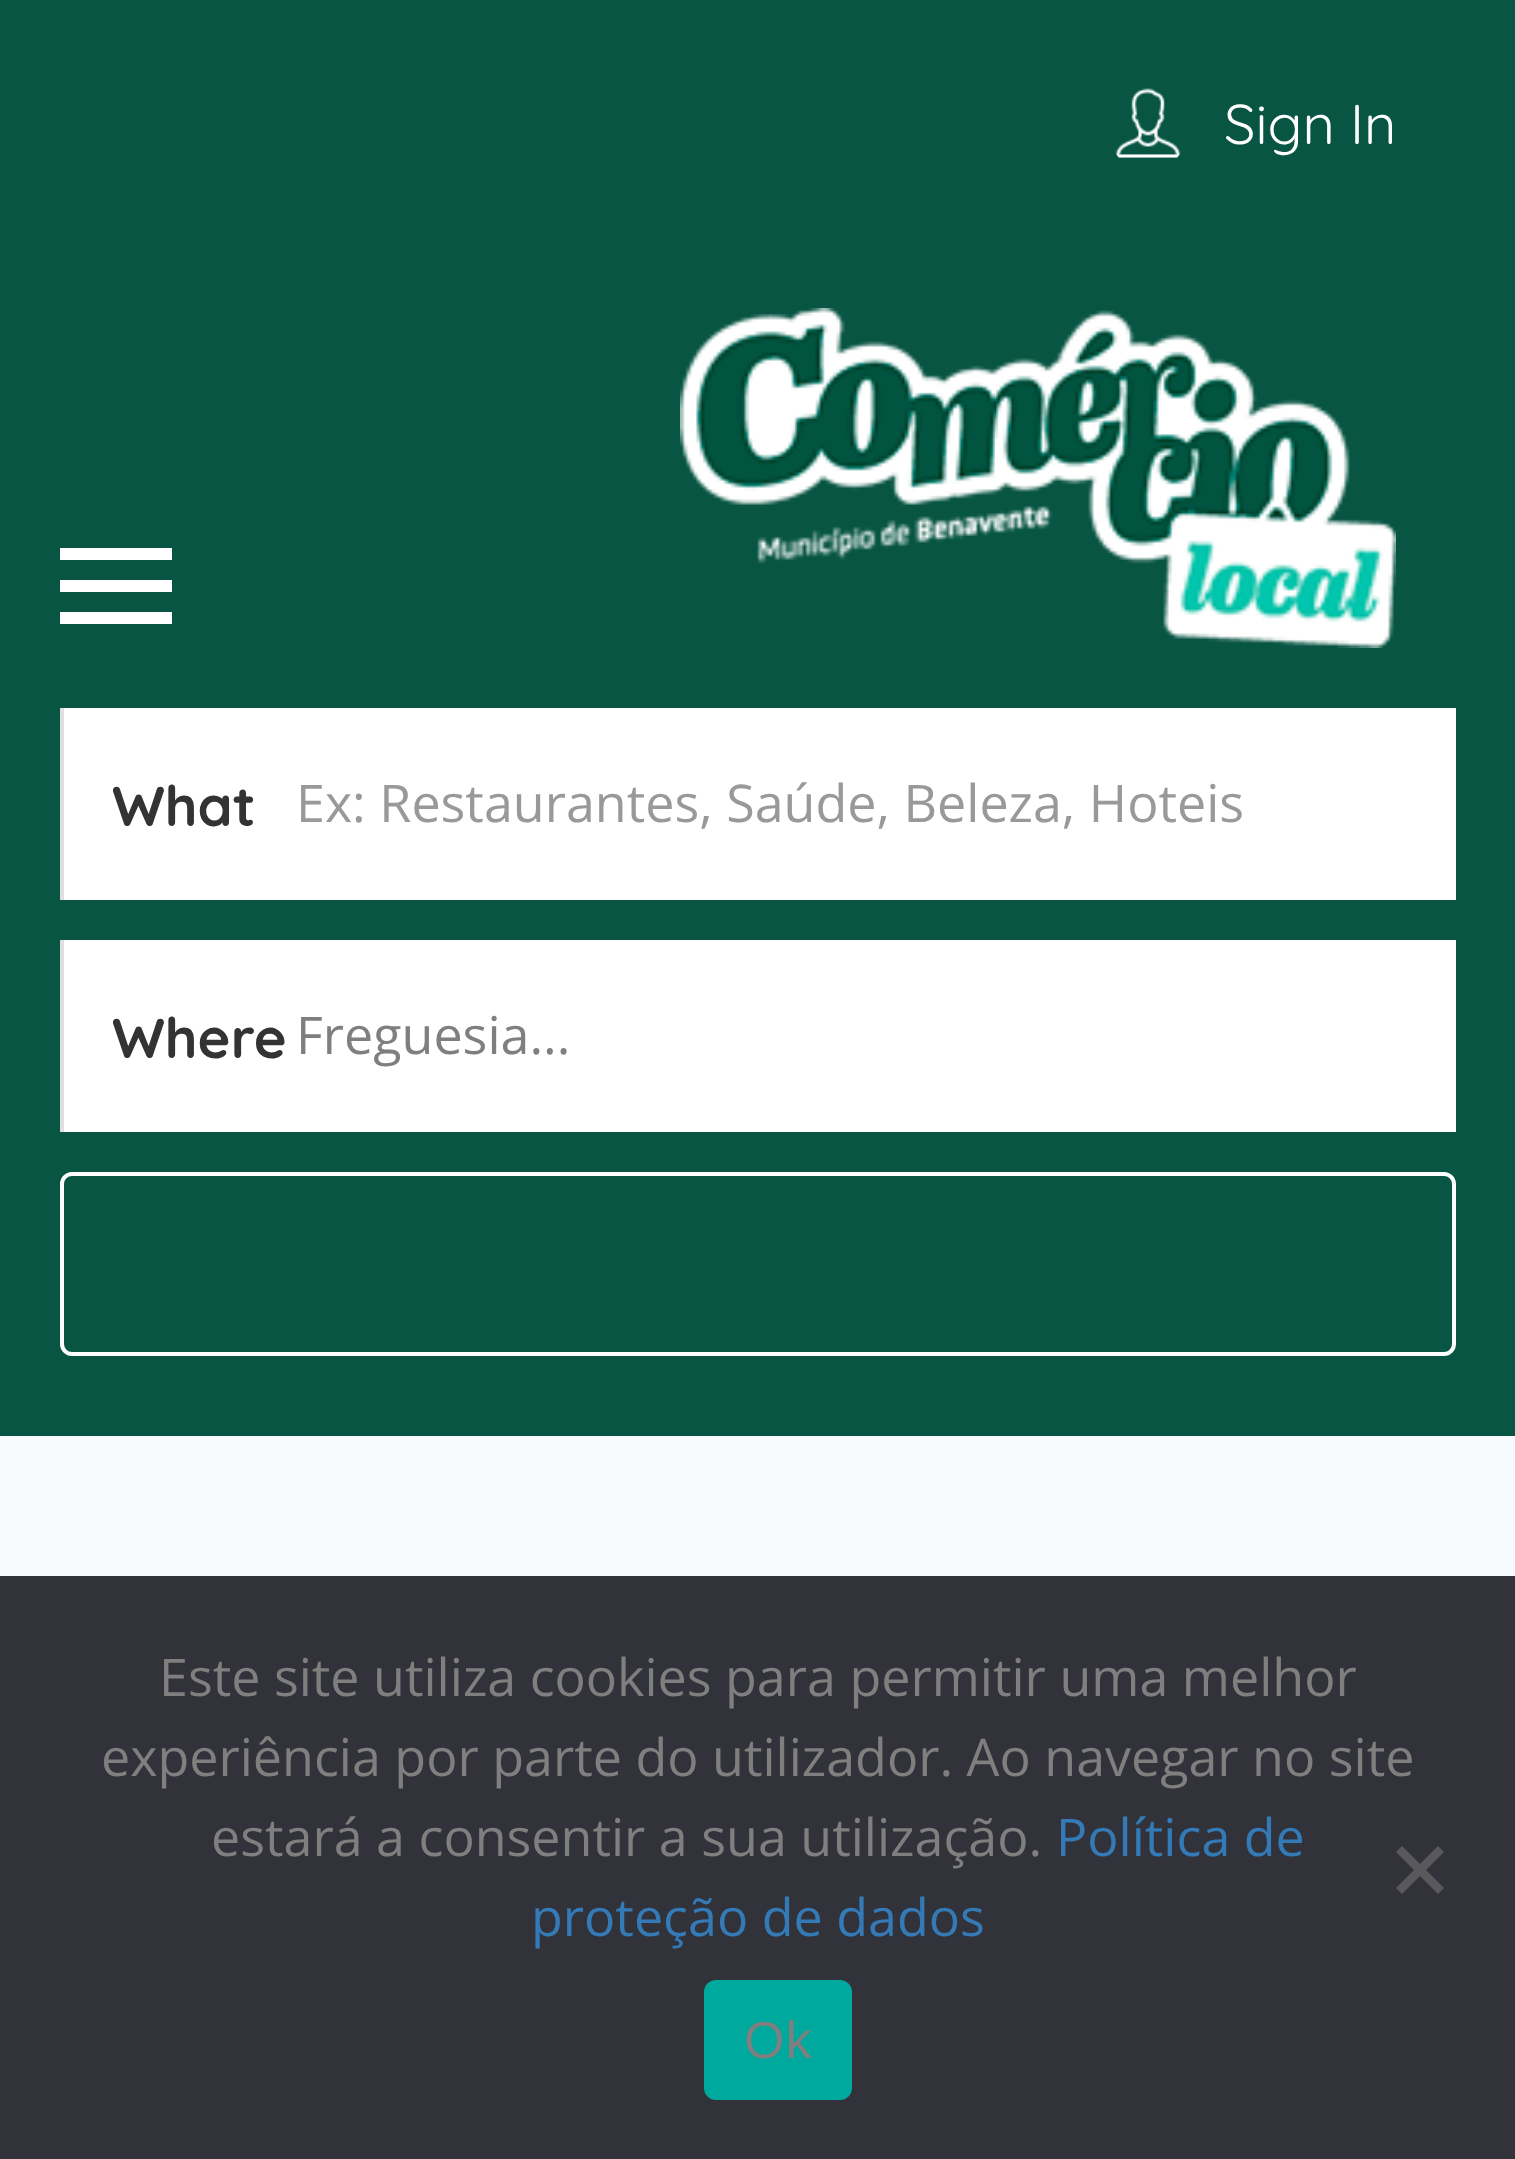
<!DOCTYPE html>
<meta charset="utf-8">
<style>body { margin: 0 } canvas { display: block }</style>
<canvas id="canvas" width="1515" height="2159"></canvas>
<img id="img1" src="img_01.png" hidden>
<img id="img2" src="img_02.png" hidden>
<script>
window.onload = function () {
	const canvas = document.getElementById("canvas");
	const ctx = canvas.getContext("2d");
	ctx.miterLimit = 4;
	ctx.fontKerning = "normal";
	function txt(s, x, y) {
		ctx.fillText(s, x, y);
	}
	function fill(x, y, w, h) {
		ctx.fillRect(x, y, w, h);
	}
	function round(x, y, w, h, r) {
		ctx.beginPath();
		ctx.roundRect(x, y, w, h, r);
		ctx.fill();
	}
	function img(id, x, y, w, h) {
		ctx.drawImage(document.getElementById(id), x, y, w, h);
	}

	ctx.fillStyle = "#F7FBFE";
	fill(0, 0, 1515, 2159);
	ctx.fillStyle = "#085543";
	fill(0, 0, 1515, 1436);
	img("img1", 1115, 88, 66, 70);
	img("img2", 680, 308, 716, 340);
	ctx.fillStyle = "#FFFFFF";
	fill(60, 548, 112, 12);
	fill(60, 580, 112, 12);
	fill(60, 612, 112, 12);
	fill(64, 708, 1392, 192);
	ctx.fillStyle = "#DEDEDE";
	fill(60, 708, 4, 192);
	ctx.fillStyle = "#FFFFFF";
	fill(64, 940, 1392, 192);
	ctx.fillStyle = "#DEDEDE";
	fill(60, 940, 4, 192);
	ctx.beginPath();
	ctx.roundRect(62, 1174, 1392, 180, 10);
	ctx.strokeStyle = "#FFFFFF";
	ctx.lineWidth = 4;
	ctx.stroke();
	ctx.fillStyle = "#32323A";
	fill(0, 1576, 1515, 583);
	ctx.fillStyle = "#59595D";
	ctx.beginPath();
	ctx.moveTo(1438, 1846);
	ctx.lineTo(1444, 1852);
	ctx.lineTo(1402, 1894);
	ctx.lineTo(1396, 1888);
	ctx.closePath();
	ctx.fill();
	ctx.beginPath();
	ctx.moveTo(1396, 1852);
	ctx.lineTo(1402, 1846);
	ctx.lineTo(1444, 1888);
	ctx.lineTo(1438, 1894);
	ctx.closePath();
	ctx.fill();
	ctx.fillStyle = "#00A99D";
	round(704, 1980, 148, 120, 12);
	ctx.font = "56px Quicksand";
	ctx.fillStyle = "#FFFFFF";
	txt("Sign In", 1224, 144);
	ctx.font = "bold 56px Quicksand";
	ctx.fillStyle = "#333333";
	txt("What", 112, 826);
	ctx.font = "52px Open Sans";
	ctx.fillStyle = "#999999";
	txt("Ex: Restaurantes, Saúde, Beleza, Hoteis", 296, 822);
	ctx.font = "bold 56px Quicksand";
	ctx.fillStyle = "#333333";
	txt("Where", 112, 1058);
	ctx.font = "52px Open Sans";
	ctx.fillStyle = "#7F7F7F";
	txt("Freguesia...", 296, 1054);
	txt("Este site utiliza cookies para permitir uma melhor", 159, 1696);
	txt("experiência por parte do utilizador. Ao navegar no site", 101, 1776);
	txt("estará a consentir a sua utilização.", 211, 1856);
	ctx.fillStyle = "#337AB7";
	txt("Política de", 1056, 1856);
	txt("proteção de dados", 531, 1936);
	ctx.letterSpacing = "1px";
	ctx.font = "52px Liberation Sans";
	ctx.fillStyle = "#7F7F7F";
	txt("Ok", 744, 2058);
};
</script>
